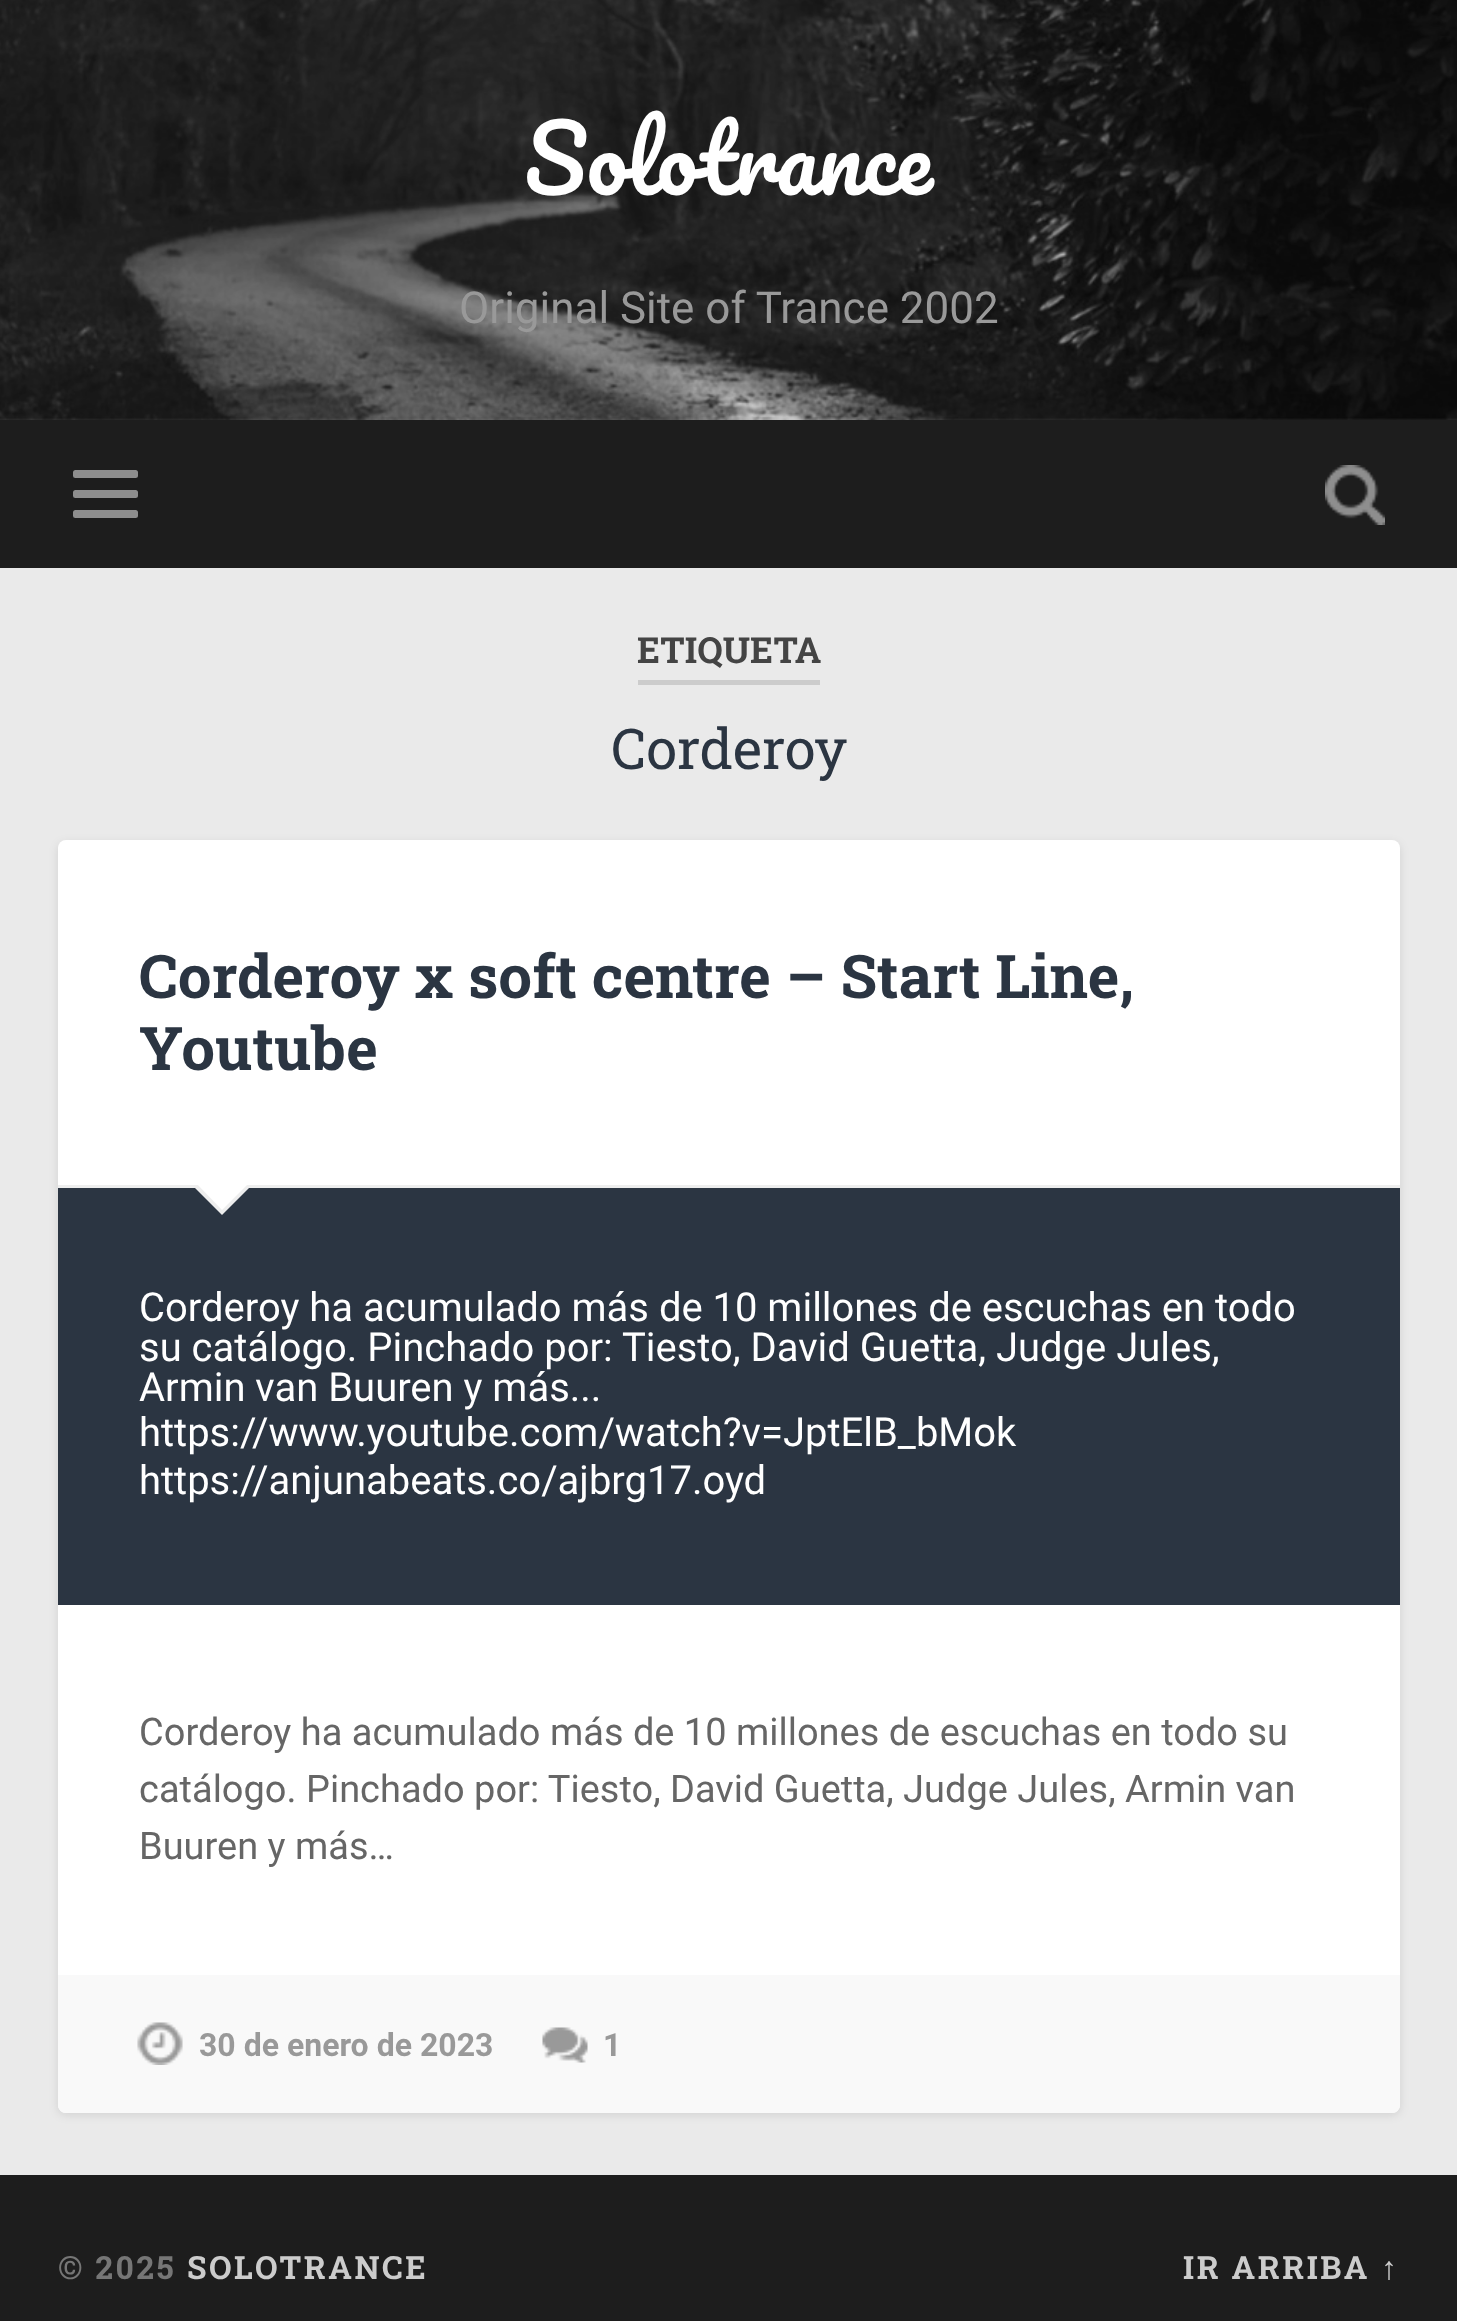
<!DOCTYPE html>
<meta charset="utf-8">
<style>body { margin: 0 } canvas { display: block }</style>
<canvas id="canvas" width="1457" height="2321"></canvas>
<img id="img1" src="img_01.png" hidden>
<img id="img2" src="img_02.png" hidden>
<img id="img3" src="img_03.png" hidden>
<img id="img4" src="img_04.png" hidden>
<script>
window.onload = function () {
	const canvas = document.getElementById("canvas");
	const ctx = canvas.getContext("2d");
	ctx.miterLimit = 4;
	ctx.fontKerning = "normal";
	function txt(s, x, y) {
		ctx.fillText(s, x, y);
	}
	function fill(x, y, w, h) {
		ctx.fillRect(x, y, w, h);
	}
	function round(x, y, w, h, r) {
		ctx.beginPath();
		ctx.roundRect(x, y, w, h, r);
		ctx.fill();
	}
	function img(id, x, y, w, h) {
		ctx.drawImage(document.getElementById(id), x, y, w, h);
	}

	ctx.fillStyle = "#EAEAEA";
	fill(0, 0, 1457, 2321);
	img("img1", 0, 0, 1457, 420);
	ctx.fillStyle = "#1D1D1D";
	fill(0, 420, 1457, 148);
	ctx.fillStyle = "#8E8E8E";
	round(73, 470, 65, 8, 2.5);
	round(73, 490, 65, 8, 2.5);
	round(73, 510, 65, 8, 2.5);
	img("img2", 1325, 465, 60, 60);
	ctx.fillStyle = "#CCCCCC";
	fill(638, 680, 182, 5);
	ctx.fillStyle = "rgba(0, 0, 0, 0.1)";
	ctx.filter = "blur(5px)";
	ctx.beginPath();
	ctx.roundRect(58, 843, 1342, 1272, 8);
	ctx.fill();
	ctx.filter = "none";
	ctx.fillStyle = "#FFFFFF";
	round(58, 840, 1342, 1273, 8);
	ctx.fillStyle = "#EEEEEE";
	fill(58, 1185, 1342, 3);
	ctx.fillStyle = "#2B3542";
	fill(58, 1188, 1342, 417);
	ctx.fillStyle = "#EEEEEE";
	ctx.beginPath();
	ctx.moveTo(192, 1185);
	ctx.lineTo(252, 1185);
	ctx.lineTo(222, 1215);
	ctx.closePath();
	ctx.fill();
	ctx.fillStyle = "#FFFFFF";
	ctx.beginPath();
	ctx.moveTo(195, 1182);
	ctx.lineTo(250, 1182);
	ctx.lineTo(222, 1210);
	ctx.closePath();
	ctx.fill();
	ctx.fillStyle = "#F9F9F9";
	ctx.beginPath();
	ctx.roundRect(58, 1975, 1342, 138, [0, 0, 8, 8]);
	ctx.fill();
	img("img3", 137, 2022, 46, 43);
	img("img4", 542, 2027, 46, 36);
	ctx.fillStyle = "#1D1D1D";
	fill(0, 2175, 1457, 146);
	ctx.font = "90px Pacifico";
	ctx.fillStyle = "#FFFFFF";
	txt("Solotrance", 524, 195);
	ctx.font = "44px Roboto";
	ctx.fillStyle = "#999999";
	txt("Original Site of Trance 2002", 459, 323);
	ctx.font = "bold 36px Roboto Slab";
	ctx.fillStyle = "#444444";
	txt("ETIQUETA", 637, 663);
	ctx.font = "56px Roboto Slab";
	ctx.fillStyle = "#2B3542";
	txt("Corderoy", 611, 769);
	ctx.font = "bold 60px Roboto Slab";
	txt("Corderoy x soft centre – Start Line,", 139, 998);
	txt("Youtube", 139, 1070);
	ctx.font = "40px Roboto";
	ctx.fillStyle = "#FFFFFF";
	txt("Corderoy ha acumulado más de 10 millones de escuchas en todo", 139, 1321);
	txt("su catálogo. Pinchado por: Tiesto, David Guetta, Judge Jules,", 139, 1361);
	txt("Armin van Buuren y más...", 139, 1401);
	txt("https://www.youtube.com/watch?v=JptElB_bMok", 139, 1446);
	txt("https://anjunabeats.co/ajbrg17.oyd", 139, 1494);
	ctx.font = "38px Roboto";
	ctx.fillStyle = "#666666";
	txt("Corderoy ha acumulado más de 10 millones de escuchas en todo su", 139, 1745);
	txt("catálogo. Pinchado por: Tiesto, David Guetta, Judge Jules, Armin van", 139, 1802);
	txt("Buuren y más…", 139, 1859);
	ctx.font = "bold 32px Roboto";
	ctx.fillStyle = "#999999";
	txt("30 de enero de 2023", 199, 2056);
	txt("1", 603, 2056);
	ctx.letterSpacing = "2.5px";
	ctx.font = "bold 32px Roboto Slab";
	ctx.fillStyle = "#767676";
	txt("© 2025", 58, 2279);
	ctx.fillStyle = "#CCCCCC";
	txt("SOLOTRANCE", 187, 2279);
	txt("IR ARRIBA", 1183, 2279);
	ctx.font = "bold 32px Liberation Sans";
	txt("↑", 1381, 2279);
};
</script>
